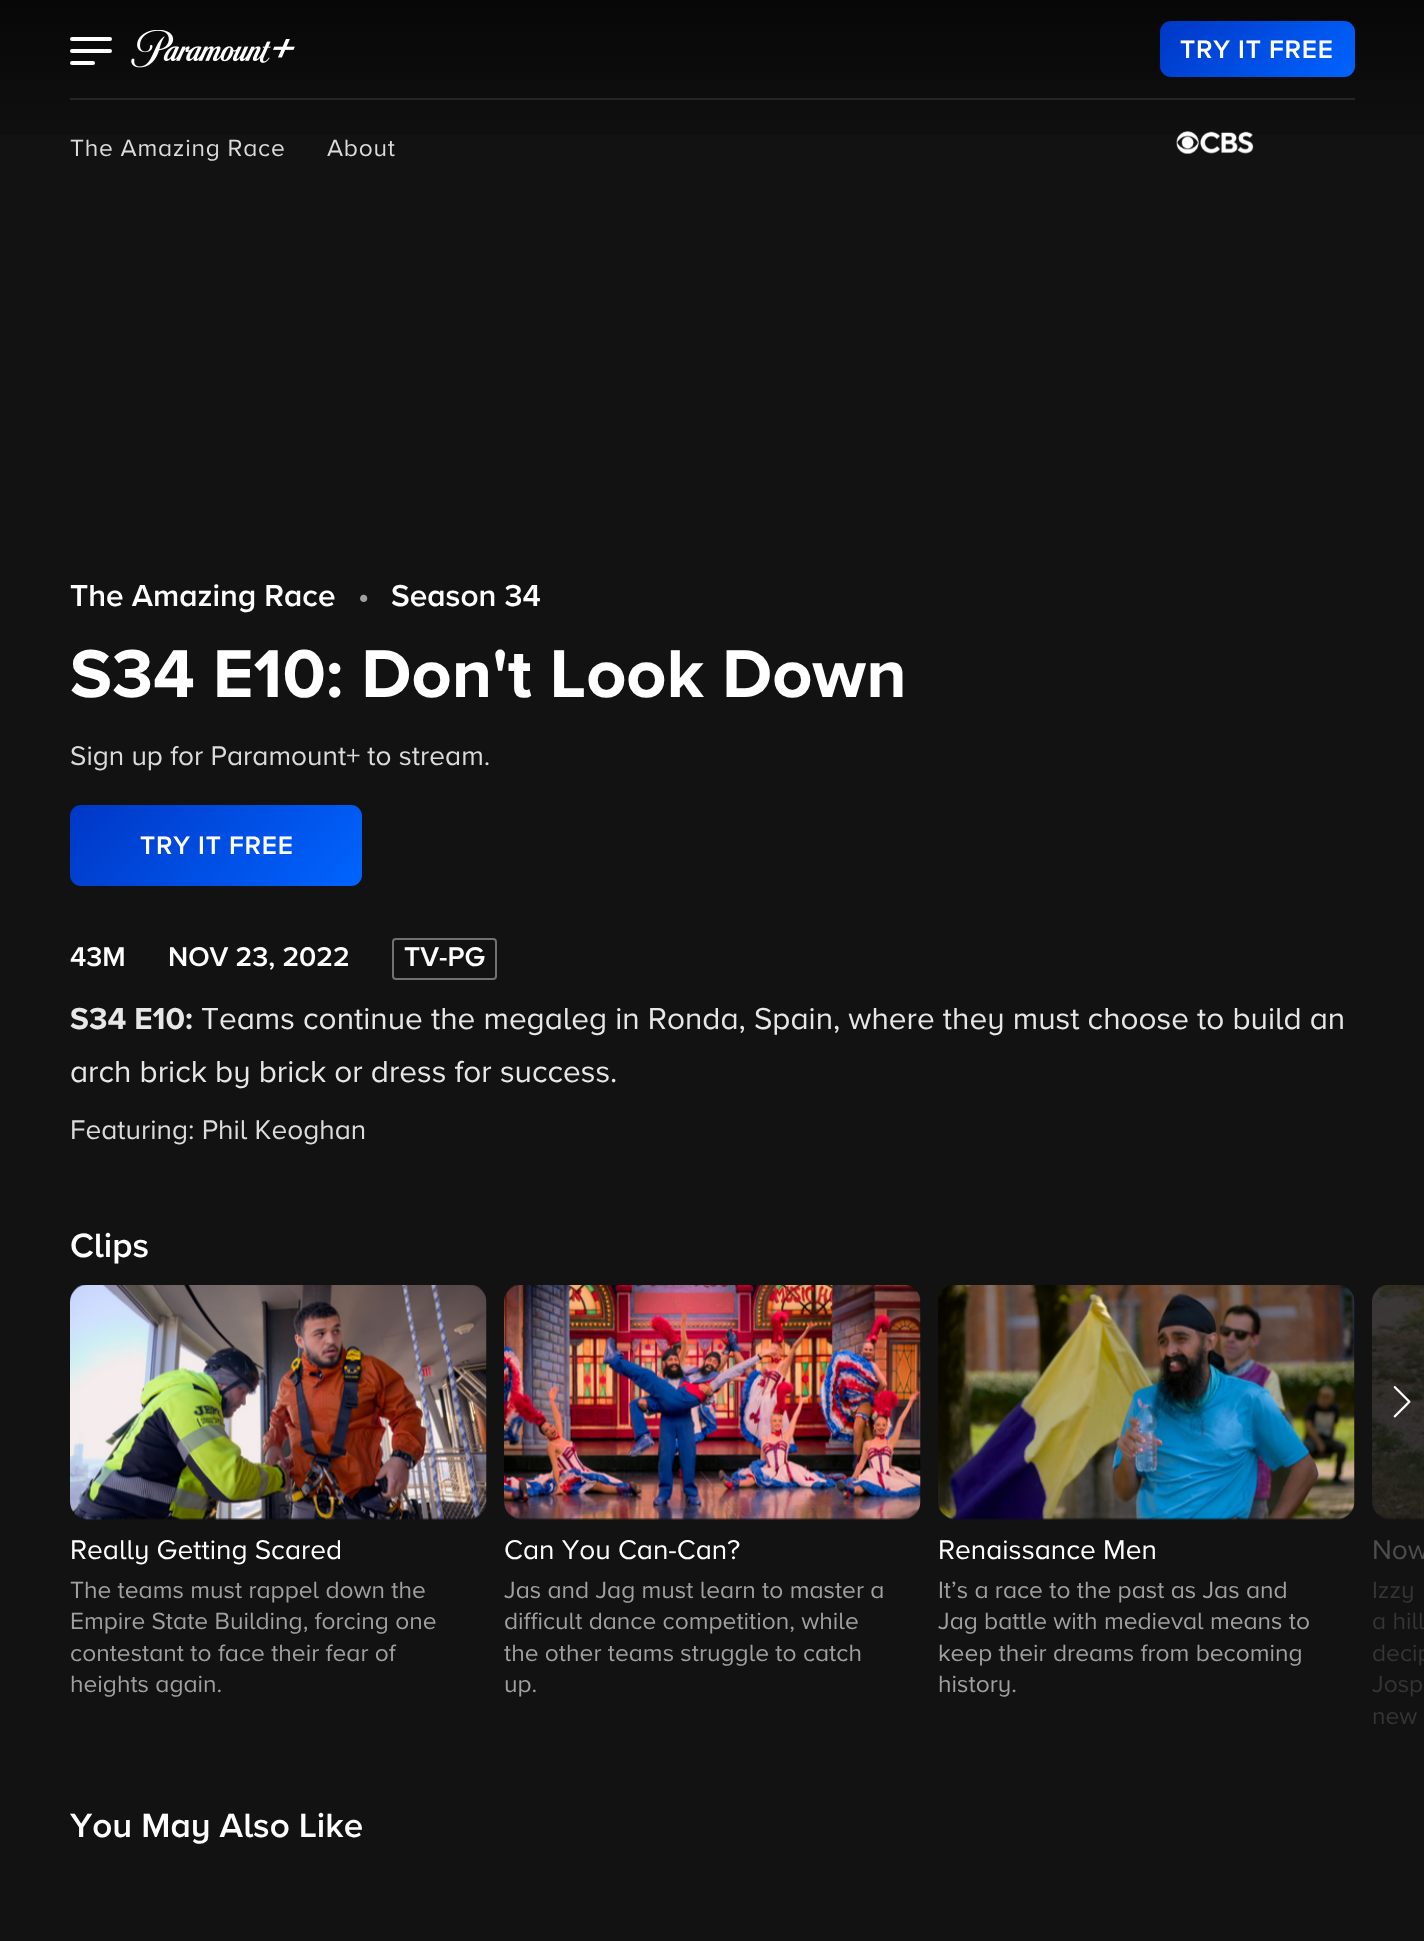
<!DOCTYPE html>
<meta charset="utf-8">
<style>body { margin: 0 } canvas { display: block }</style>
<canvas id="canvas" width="1424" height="1941"></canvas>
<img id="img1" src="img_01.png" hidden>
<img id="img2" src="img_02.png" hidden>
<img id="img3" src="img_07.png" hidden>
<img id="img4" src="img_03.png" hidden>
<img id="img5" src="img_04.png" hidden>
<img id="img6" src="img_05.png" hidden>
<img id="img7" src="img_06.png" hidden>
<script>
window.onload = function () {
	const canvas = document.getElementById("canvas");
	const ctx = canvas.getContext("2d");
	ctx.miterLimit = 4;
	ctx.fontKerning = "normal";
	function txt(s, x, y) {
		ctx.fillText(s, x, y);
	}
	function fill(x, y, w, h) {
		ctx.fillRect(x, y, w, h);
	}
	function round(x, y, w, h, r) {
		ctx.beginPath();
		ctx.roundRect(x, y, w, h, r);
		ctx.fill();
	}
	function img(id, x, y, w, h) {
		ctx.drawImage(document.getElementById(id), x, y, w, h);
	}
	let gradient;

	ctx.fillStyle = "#121212";
	fill(0, 0, 1424, 1941);
	gradient = ctx.createLinearGradient(712, 0, 712, 175);
	gradient.addColorStop(0, "#070707");
	gradient.addColorStop(1, "#121212");
	ctx.fillStyle = gradient;
	fill(0, 0, 1424, 135);
	ctx.fillStyle = "#FFFFFF";
	round(70, 37, 42, 4, 2);
	round(70, 49, 42, 4, 2);
	round(70, 61, 25, 4, 2);
	img("img1", 131, 30, 164, 38);
	gradient = ctx.createLinearGradient(1195, -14, 1320, 112);
	gradient.addColorStop(0, "#0037C5");
	gradient.addColorStop(1, "#0064FF");
	ctx.fillStyle = gradient;
	round(1160, 21, 195, 56, 11);
	ctx.fillStyle = "#252525";
	fill(70, 98, 1285, 2);
	img("img2", 1176, 131, 78, 23);
	gradient = ctx.createLinearGradient(123, 752, 309, 938);
	gradient.addColorStop(0, "#0037C5");
	gradient.addColorStop(1, "#0064FF");
	ctx.fillStyle = gradient;
	round(70, 805, 292, 81, 11);
	ctx.beginPath();
	ctx.roundRect(393, 939, 103, 40, 3);
	ctx.strokeStyle = "#717171";
	ctx.lineWidth = 2;
	ctx.stroke();
	img("img3", 1372, 1285, 52, 235);
	img("img4", 1393, 1386, 18, 32);
	img("img5", 70, 1285, 417, 235);
	img("img6", 504, 1285, 417, 235);
	img("img7", 938, 1285, 417, 235);
	ctx.letterSpacing = "0.75px";
	ctx.font = "26.25px Proxima Nova";
	ctx.fillStyle = "#FFFFFF";
	txt("TRY IT FREE", 1180, 58);
	ctx.font = "24.5px 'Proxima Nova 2'";
	ctx.fillStyle = "#DBDBDB";
	txt("The Amazing Race", 70, 156);
	txt("About", 327, 156);
	ctx.letterSpacing = "0px";
	ctx.font = "31.5px Proxima Nova";
	ctx.fillStyle = "#FFFFFF";
	txt("The Amazing Race", 70, 606);
	ctx.fillStyle = "#A0A0A0";
	txt("•", 358, 606);
	ctx.fillStyle = "#FFFFFF";
	txt("Season 34", 391, 606);
	ctx.font = "70px 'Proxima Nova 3'";
	txt("S34 E10: Don't Look Down", 70, 697);
	ctx.font = "28px 'Proxima Nova 2'";
	ctx.fillStyle = "#DBDBDB";
	txt("Sign up for Paramount+ to stream.", 70, 765);
	ctx.letterSpacing = "0.75px";
	ctx.font = "26.25px Proxima Nova";
	ctx.fillStyle = "#FFFFFF";
	txt("TRY IT FREE", 140, 854);
	ctx.letterSpacing = "0px";
	ctx.font = "28px Proxima Nova";
	txt("43M", 70, 966);
	txt("NOV 23, 2022", 168, 966);
	txt("TV-PG", 404, 966);
	ctx.font = "31.5px 'Proxima Nova 3'";
	ctx.fillStyle = "#E7E7E7";
	txt("S34 E10:", 70, 1029);
	ctx.font = "31.5px 'Proxima Nova 2'";
	txt("Teams continue the megaleg in Ronda, Spain, where they must choose to build an", 201, 1029);
	txt("arch brick by brick or dress for success.", 70, 1082);
	ctx.font = "28px 'Proxima Nova 2'";
	ctx.fillStyle = "#DBDBDB";
	txt("Featuring: Phil Keoghan", 70, 1139);
	ctx.font = "35px Proxima Nova";
	ctx.fillStyle = "#FFFFFF";
	txt("Clips", 70, 1257);
	ctx.font = "28px 'Proxima Nova 2'";
	txt("Really Getting Scared", 70, 1559);
	ctx.font = "24.5px 'Proxima Nova 2'";
	ctx.fillStyle = "#A0A0A0";
	txt("The teams must rappel down the", 70, 1598);
	txt("Empire State Building, forcing one", 70, 1629);
	txt("contestant to face their fear of", 70, 1661);
	txt("heights again.", 70, 1692);
	ctx.font = "28px 'Proxima Nova 2'";
	ctx.fillStyle = "#FFFFFF";
	txt("Can You Can-Can?", 504, 1559);
	ctx.font = "24.5px 'Proxima Nova 2'";
	ctx.fillStyle = "#A0A0A0";
	txt("Jas and Jag must learn to master a", 504, 1598);
	txt("difficult dance competition, while", 504, 1629);
	txt("the other teams struggle to catch", 504, 1661);
	txt("up.", 504, 1692);
	ctx.font = "28px 'Proxima Nova 2'";
	ctx.fillStyle = "#FFFFFF";
	txt("Renaissance Men", 938, 1559);
	ctx.font = "24.5px 'Proxima Nova 2'";
	ctx.fillStyle = "#A0A0A0";
	txt("It’s a race to the past as Jas and", 938, 1598);
	txt("Jag battle with medieval means to", 938, 1629);
	txt("keep their dreams from becoming", 938, 1661);
	txt("history.", 938, 1692);
	ctx.font = "28px 'Proxima Nova 2'";
	ctx.fillStyle = "#4D4D4D";
	txt("Now", 1372, 1559);
	ctx.font = "24.5px 'Proxima Nova 2'";
	ctx.fillStyle = "#353535";
	txt("Izzy", 1372, 1598);
	txt("a hill", 1372, 1629);
	txt("decip", 1372, 1661);
	txt("Josp", 1372, 1692);
	txt("new", 1372, 1724);
	ctx.font = "35px Proxima Nova";
	ctx.fillStyle = "#FFFFFF";
	txt("You May Also Like", 70, 1837);
};
</script>
